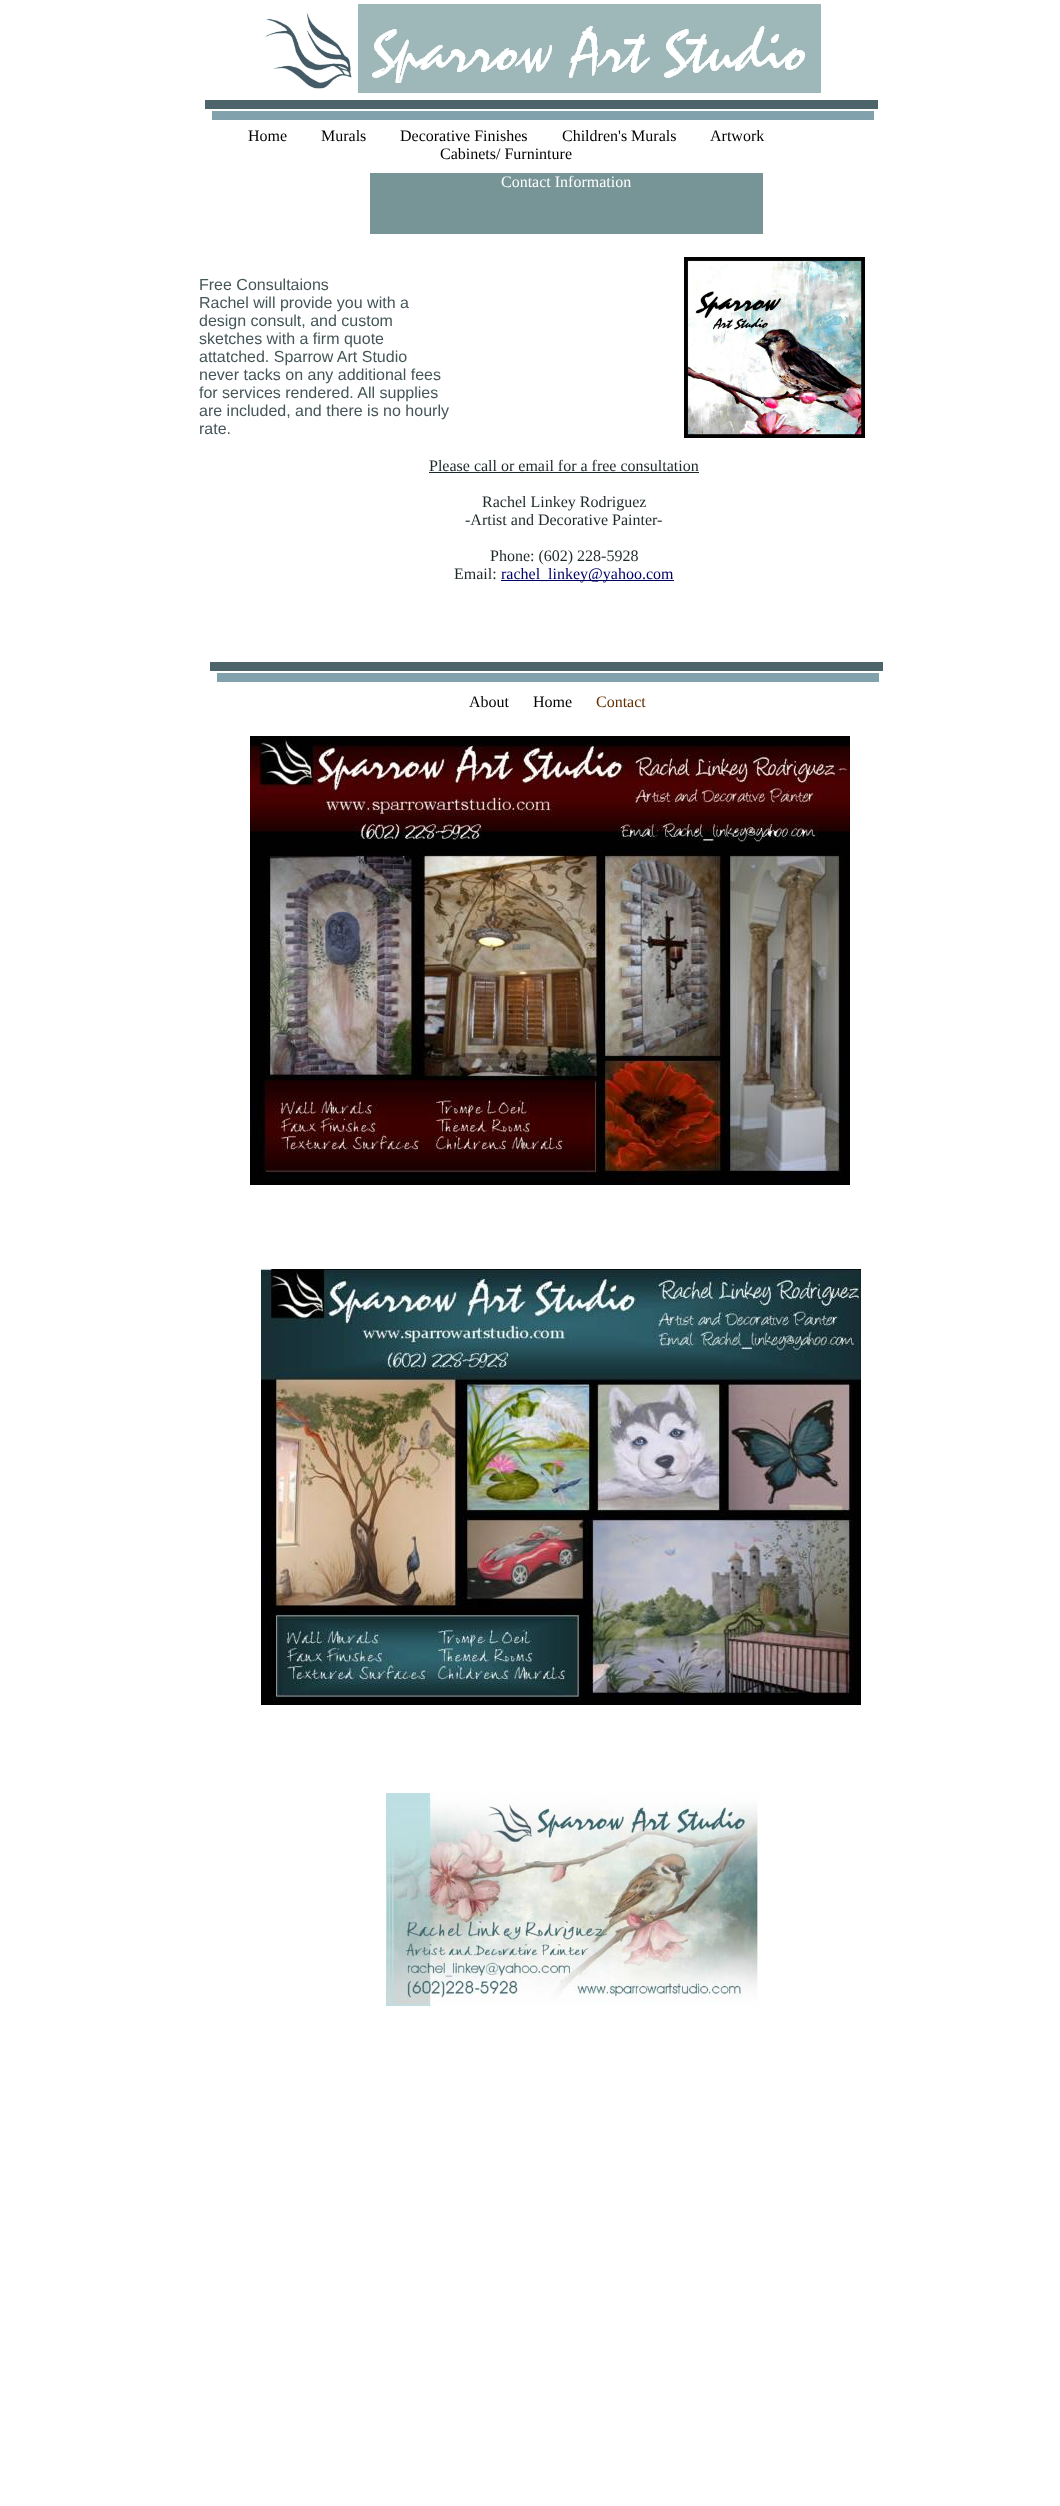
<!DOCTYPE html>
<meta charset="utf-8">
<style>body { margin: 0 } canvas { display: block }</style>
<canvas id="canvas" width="1060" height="2506"></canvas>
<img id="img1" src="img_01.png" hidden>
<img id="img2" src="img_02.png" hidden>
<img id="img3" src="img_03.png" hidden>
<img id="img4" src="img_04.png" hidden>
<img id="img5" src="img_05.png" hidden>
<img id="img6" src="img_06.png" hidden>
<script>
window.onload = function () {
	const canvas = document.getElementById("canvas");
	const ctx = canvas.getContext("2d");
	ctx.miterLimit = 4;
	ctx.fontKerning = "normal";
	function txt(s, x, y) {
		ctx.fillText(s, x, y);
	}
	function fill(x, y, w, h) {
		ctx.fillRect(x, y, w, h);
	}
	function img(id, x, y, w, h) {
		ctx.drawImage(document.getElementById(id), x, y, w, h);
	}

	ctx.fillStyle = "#FFFFFF";
	fill(0, 0, 1060, 2506);
	img("img1", 265, 12, 87, 77);
	img("img2", 358, 4, 463, 89);
	ctx.fillStyle = "#4D646B";
	fill(205, 100, 673, 9);
	ctx.fillStyle = "#81A2AD";
	fill(212, 111, 662, 9);
	ctx.fillStyle = "#779497";
	fill(370, 173, 393, 61);
	img("img3", 684, 257, 181, 181);
	ctx.fillStyle = "#1E282A";
	fill(429, 472, 270, 1);
	ctx.fillStyle = "#000066";
	fill(501, 580, 173, 1);
	ctx.fillStyle = "#4D646B";
	fill(210, 662, 673, 9);
	ctx.fillStyle = "#81A2AD";
	fill(217, 673, 662, 9);
	img("img4", 250, 736, 600, 449);
	img("img5", 261, 1269, 600, 436);
	img("img6", 386, 1793, 372, 213);
	ctx.font = "16px Liberation Serif";
	ctx.fillStyle = "#000000";
	txt("Home", 248, 141);
	txt("Murals", 321, 141);
	txt("Decorative Finishes", 400, 141);
	txt("Children's Murals", 562, 141);
	txt("Artwork", 710, 141);
	txt("Cabinets/ Furninture", 440, 159);
	ctx.fillStyle = "#FFFFFF";
	txt("Contact Information", 501, 187);
	ctx.font = "16px Liberation Sans";
	ctx.fillStyle = "#455658";
	txt("Free Consultaions", 199, 290);
	txt("Rachel will provide you with a", 199, 308);
	txt("design consult, and custom", 199, 326);
	txt("sketches with a firm quote", 199, 344);
	txt("attatched. Sparrow Art Studio", 199, 362);
	txt("never tacks on any additional fees", 199, 380);
	txt("for services rendered. All supplies", 199, 398);
	txt("are included, and there is no hourly", 199, 416);
	txt("rate.", 199, 434);
	ctx.font = "16px Liberation Serif";
	ctx.fillStyle = "#1E282A";
	txt("Please call or email for a free consultation", 429, 471);
	txt("Rachel Linkey Rodriguez", 482, 507);
	txt("-Artist and Decorative Painter-", 465, 525);
	txt("Phone: (602) 228-5928", 490, 561);
	txt("Email:", 454, 579);
	ctx.fillStyle = "#000066";
	txt("rachel_linkey@yahoo.com", 501, 579);
	ctx.fillStyle = "#000000";
	txt("About", 469, 707);
	txt("Home", 533, 707);
	ctx.fillStyle = "#633100";
	txt("Contact", 596, 707);
};
</script>
